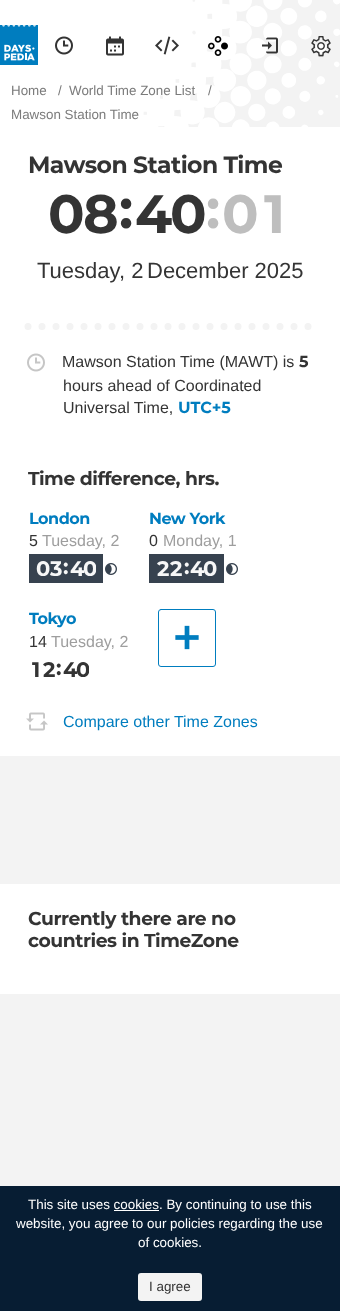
<!DOCTYPE html>
<meta charset="utf-8">
<style>body { margin: 0 } canvas { display: block }</style>
<canvas id="canvas" width="340" height="1311"></canvas>
<img id="img1" src="img_01.png" hidden>
<img id="img2" src="img_02.png" hidden>
<img id="img3" src="img_03.png" hidden>
<img id="img4" src="img_04.png" hidden>
<img id="img5" src="img_05.png" hidden>
<img id="img6" src="img_06.png" hidden>
<img id="img7" src="img_07.png" hidden>
<img id="img8" src="img_08.png" hidden>
<img id="img9" src="img_09.png" hidden>
<img id="img10" src="img_10.png" hidden>
<img id="img11" src="img_11.png" hidden>
<img id="img12" src="img_12.png" hidden>
<img id="img13" src="img_13.png" hidden>
<script>
window.onload = function () {
	const canvas = document.getElementById("canvas");
	const ctx = canvas.getContext("2d");
	ctx.miterLimit = 4;
	ctx.fontKerning = "normal";
	function txt(s, x, y) {
		ctx.fillText(s, x, y);
	}
	function fill(x, y, w, h) {
		ctx.fillRect(x, y, w, h);
	}
	function round(x, y, w, h, r) {
		ctx.beginPath();
		ctx.roundRect(x, y, w, h, r);
		ctx.fill();
	}
	function img(id, x, y, w, h) {
		ctx.drawImage(document.getElementById(id), x, y, w, h);
	}

	ctx.fillStyle = "#F3F3F3";
	fill(0, 0, 340, 1311);
	img("img1", 0, 0, 14, 127);
	img("img2", 14, 0, 326, 127);
	ctx.fillStyle = "#007DBF";
	fill(0, 25, 38, 40);
	img("img3", 2, 25, 34, 36);
	img("img4", 55, 36, 18, 19);
	img("img5", 106, 36, 18, 20);
	img("img6", 155, 36, 24, 19);
	img("img7", 208, 36, 20, 20);
	img("img8", 262, 37, 16, 17);
	img("img9", 311, 36, 20, 21);
	ctx.fillStyle = "#FFFFFF";
	fill(0, 127, 340, 629);
	ctx.beginPath();
	ctx.moveTo(28, 326.5);
	ctx.lineTo(312, 326.5);
	ctx.strokeStyle = "#F3F3F3";
	ctx.lineWidth = 7;
	ctx.lineCap = "round";
	ctx.setLineDash([0, 14]);
	ctx.stroke();
	img("img10", 27, 353, 18, 19);
	ctx.fillStyle = "#37424F";
	fill(29, 554, 74, 29);
	img("img11", 105, 563, 12, 12);
	fill(149, 554, 75, 29);
	img("img11", 226, 563, 12, 12);
	ctx.beginPath();
	ctx.roundRect(158.5, 609.5, 57, 57, 2.5);
	ctx.strokeStyle = "#007DBF";
	ctx.lineWidth = 1;
	ctx.setLineDash([]);
	ctx.stroke();
	img("img12", 175, 625, 24, 25);
	img("img13", 26, 712, 22, 19);
	ctx.fillStyle = "#FFFFFF";
	fill(0, 884, 340, 110);
	ctx.fillStyle = "#071D33";
	fill(0, 1186, 340, 125);
	ctx.fillStyle = "#FFFFFF";
	fill(114, 1210, 45, 1);
	ctx.fillStyle = "#F3F3F3";
	round(138, 1273, 64, 28, 3);
	ctx.font = "13.4px Liberation Sans";
	ctx.fillStyle = "#7B7B7B";
	txt("Home", 11, 95);
	txt("/", 58, 95);
	txt("World Time Zone List", 69, 95);
	txt("/", 208, 95);
	txt("Mawson Station Time", 11, 119);
	ctx.letterSpacing = "-0.6px";
	ctx.font = "bold 23.5px Montserrat";
	ctx.fillStyle = "#343434";
	txt("Mawson Station Time", 28, 173);
	ctx.letterSpacing = "0px";
	ctx.font = "bold 54px Montserrat";
	txt("0", 48, 233);
	txt("8", 83, 233);
	txt(":", 119, 228);
	txt("4", 135, 233);
	txt("0", 170, 233);
	ctx.fillStyle = "#BEBEBE";
	txt(":", 206, 228);
	txt("0", 222, 233);
	txt("1", 264, 233);
	ctx.font = "22px Liberation Sans";
	ctx.fillStyle = "#343434";
	txt("Tuesday, 2", 37, 278);
	txt("December 2025", 147, 278);
	ctx.font = "16px Liberation Sans";
	txt("Mawson Station Time (MAWT) is", 62, 367);
	ctx.font = "bold 16px Montserrat";
	txt("5", 299, 367);
	ctx.font = "16px Liberation Sans";
	txt("hours ahead of Coordinated", 63, 391);
	txt("Universal Time,", 63, 413);
	ctx.font = "bold 16px Montserrat";
	ctx.fillStyle = "#007DBF";
	txt("UTC+5", 178, 413);
	ctx.letterSpacing = "-0.45px";
	ctx.font = "bold 18.75px Montserrat";
	ctx.fillStyle = "#343434";
	txt("Time difference, hrs.", 28, 485);
	ctx.letterSpacing = "-0.5px";
	ctx.font = "bold 16px Montserrat";
	ctx.fillStyle = "#007DBF";
	txt("London", 29, 524);
	ctx.letterSpacing = "0px";
	ctx.font = "16px Liberation Sans";
	ctx.fillStyle = "#343434";
	txt("5", 29, 546);
	ctx.fillStyle = "#9E9E9E";
	txt("Tuesday, 2", 42, 546);
	ctx.save();
	ctx.beginPath();
	ctx.rect(36, 561, 27, 15);
	ctx.clip();
	ctx.font = "bold 21px Montserrat";
	ctx.fillStyle = "#F7F7F7";
	txt("0", 36, 576);
	txt("3", 50, 576);
	ctx.restore();
	ctx.font = "bold 21px Montserrat";
	ctx.fillStyle = "#F7F7F7";
	txt(":", 63, 574);
	txt("4", 70, 576);
	ctx.save();
	ctx.beginPath();
	ctx.rect(63, 561, 33, 15);
	ctx.clip();
	txt("0", 83, 576);
	ctx.restore();
	ctx.letterSpacing = "-0.5px";
	ctx.font = "bold 16px Montserrat";
	ctx.fillStyle = "#007DBF";
	txt("New York", 149, 524);
	ctx.letterSpacing = "0px";
	ctx.font = "16px Liberation Sans";
	ctx.fillStyle = "#343434";
	txt("0", 149, 546);
	ctx.fillStyle = "#9E9E9E";
	txt("Monday, 1", 163, 546);
	ctx.font = "bold 21px Montserrat";
	ctx.fillStyle = "#F7F7F7";
	txt("2", 157, 576);
	txt("2", 170, 576);
	txt(":", 184, 574);
	txt("4", 190, 576);
	ctx.save();
	ctx.beginPath();
	ctx.rect(183, 561, 34, 15);
	ctx.clip();
	txt("0", 203, 576);
	ctx.restore();
	ctx.letterSpacing = "-0.5px";
	ctx.font = "bold 16px Montserrat";
	ctx.fillStyle = "#007DBF";
	txt("Tokyo", 29, 624);
	ctx.letterSpacing = "0px";
	ctx.font = "16px Liberation Sans";
	ctx.fillStyle = "#343434";
	txt("14", 29, 647);
	ctx.fillStyle = "#9E9E9E";
	txt("Tuesday, 2", 51, 647);
	ctx.font = "bold 21px Montserrat";
	ctx.fillStyle = "#343434";
	txt("1", 32, 677);
	txt("2", 43, 677);
	txt(":", 56, 675);
	txt("4", 63, 677);
	ctx.save();
	ctx.beginPath();
	ctx.rect(56, 662, 33, 15);
	ctx.clip();
	txt("0", 76, 677);
	ctx.restore();
	ctx.font = "16px Liberation Sans";
	ctx.fillStyle = "#007DBF";
	txt("Compare other Time Zones", 63, 727);
	ctx.letterSpacing = "-0.45px";
	ctx.font = "bold 18.75px Montserrat";
	ctx.fillStyle = "#343434";
	txt("Currently there are no", 28, 925);
	txt("countries in TimeZone", 28, 947);
	ctx.letterSpacing = "0px";
	ctx.font = "13.4px Liberation Sans";
	ctx.fillStyle = "#FFFFFF";
	txt("This site uses cookies. By continuing to use this", 28, 1209);
	txt("website, you agree to our policies regarding the use", 16, 1228);
	txt("of cookies.", 138, 1247);
	ctx.fillStyle = "#343434";
	txt("I agree", 149, 1291);
};
</script>
